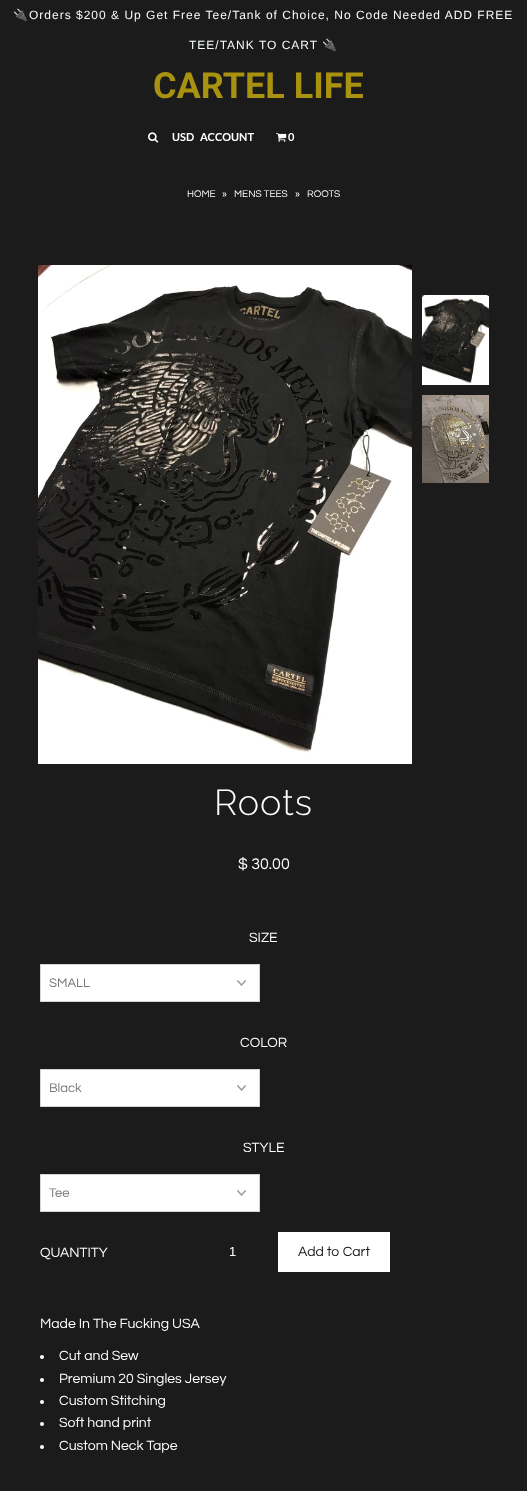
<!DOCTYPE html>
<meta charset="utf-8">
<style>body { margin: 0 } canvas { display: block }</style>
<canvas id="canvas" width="527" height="1491"></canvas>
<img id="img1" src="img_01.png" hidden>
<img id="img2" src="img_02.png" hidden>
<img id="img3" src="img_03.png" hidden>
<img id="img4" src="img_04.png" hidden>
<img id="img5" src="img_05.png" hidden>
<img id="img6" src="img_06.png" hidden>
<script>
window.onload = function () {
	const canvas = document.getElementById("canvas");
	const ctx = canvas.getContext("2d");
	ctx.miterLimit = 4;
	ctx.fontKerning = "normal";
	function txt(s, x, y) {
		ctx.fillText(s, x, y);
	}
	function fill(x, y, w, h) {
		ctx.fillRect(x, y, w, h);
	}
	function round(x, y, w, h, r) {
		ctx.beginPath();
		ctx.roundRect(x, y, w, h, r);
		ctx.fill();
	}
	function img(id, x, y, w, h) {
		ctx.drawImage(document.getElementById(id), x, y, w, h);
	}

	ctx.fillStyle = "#1B1B1B";
	fill(0, 0, 527, 1491);
	img("img1", 148, 132, 11, 11);
	img("img2", 276, 133, 11, 9);
	img("img3", 38, 265, 374, 499);
	img("img4", 422, 295, 67, 90);
	img("img5", 422, 395, 67, 88);
	ctx.fillStyle = "#FFFFFF";
	round(40, 964, 220, 38, 1);
	img("img6", 237, 980, 9, 6);
	ctx.beginPath();
	ctx.roundRect(40.5, 964.5, 219, 37, 0.5);
	ctx.strokeStyle = "#D5D5D5";
	ctx.stroke();
	round(40, 1069, 220, 38, 1);
	img("img6", 237, 1085, 9, 6);
	ctx.beginPath();
	ctx.roundRect(40.5, 1069.5, 219, 37, 0.5);
	ctx.stroke();
	round(40, 1174, 220, 38, 1);
	img("img6", 237, 1190, 9, 6);
	ctx.beginPath();
	ctx.roundRect(40.5, 1174.5, 219, 37, 0.5);
	ctx.stroke();
	fill(278, 1232, 112, 40);
	ctx.beginPath();
	ctx.arc(42, 1357, 2, 0, Math.PI * 2);
	ctx.fill();
	ctx.beginPath();
	ctx.arc(42, 1380, 2, 0, Math.PI * 2);
	ctx.fill();
	ctx.beginPath();
	ctx.arc(42, 1402, 2, 0, Math.PI * 2);
	ctx.fill();
	ctx.beginPath();
	ctx.arc(42, 1424, 2, 0, Math.PI * 2);
	ctx.fill();
	ctx.beginPath();
	ctx.arc(42, 1447, 2, 0, Math.PI * 2);
	ctx.fill();
	ctx.letterSpacing = "1px";
	ctx.font = "12px Noto Color Emoji";
	ctx.fillStyle = "#F7FCFF";
	txt("🔌", 13, 19);
	ctx.font = "12px Liberation Sans";
	txt("Orders $200 & Up Get Free Tee/Tank of Choice, No Code Needed ADD FREE", 29, 19);
	txt("TEE/TANK TO CART", 189, 49);
	ctx.font = "12px Noto Color Emoji";
	txt("🔌", 322, 49);
	ctx.letterSpacing = "0px";
	ctx.font = "bold 36px Roboto";
	ctx.fillStyle = "#A99210";
	txt("CARTEL LIFE", 153, 98);
	ctx.font = "bold 11px Lato";
	ctx.fillStyle = "#FFFFFF";
	txt("USD", 172, 141);
	txt("ACCOUNT", 200, 141);
	txt("0", 288, 141);
	ctx.font = "10px Questrial";
	txt("HOME", 187, 197);
	txt("»", 222, 197);
	txt("MENS TEES", 234, 197);
	txt("»", 295, 197);
	txt("ROOTS", 307, 197);
	ctx.letterSpacing = "1px";
	ctx.font = "300 36px Raleway";
	txt("Roots", 214, 815);
	ctx.letterSpacing = "0px";
	ctx.font = "16px Questrial";
	txt("$ 30.00", 238, 869);
	ctx.font = "14px Questrial";
	txt("SIZE", 249, 942);
	ctx.font = "13px Questrial";
	ctx.fillStyle = "#777777";
	txt("SMALL", 49, 987);
	ctx.font = "14px Questrial";
	ctx.fillStyle = "#FFFFFF";
	txt("COLOR", 240, 1047);
	ctx.font = "13px Questrial";
	ctx.fillStyle = "#777777";
	txt("Black", 49, 1092);
	ctx.font = "14px Questrial";
	ctx.fillStyle = "#FFFFFF";
	txt("STYLE", 243, 1152);
	ctx.font = "13px Questrial";
	ctx.fillStyle = "#777777";
	txt("Tee", 49, 1197);
	ctx.font = "14px Questrial";
	ctx.fillStyle = "#FFFFFF";
	txt("QUANTITY", 40, 1257);
	ctx.font = "13px Liberation Sans";
	txt("1", 229, 1256);
	ctx.font = "14px Questrial";
	ctx.fillStyle = "#1B1B1B";
	txt("Add to Cart", 298, 1256);
	ctx.fillStyle = "#FFFFFF";
	txt("Made In The Fucking USA", 40, 1328);
	txt("Cut and Sew", 59, 1360);
	txt("Premium 20 Singles Jersey", 59, 1383);
	txt("Custom Stitching", 59, 1405);
	txt("Soft hand print", 59, 1427);
	txt("Custom Neck Tape", 59, 1450);
};
</script>
